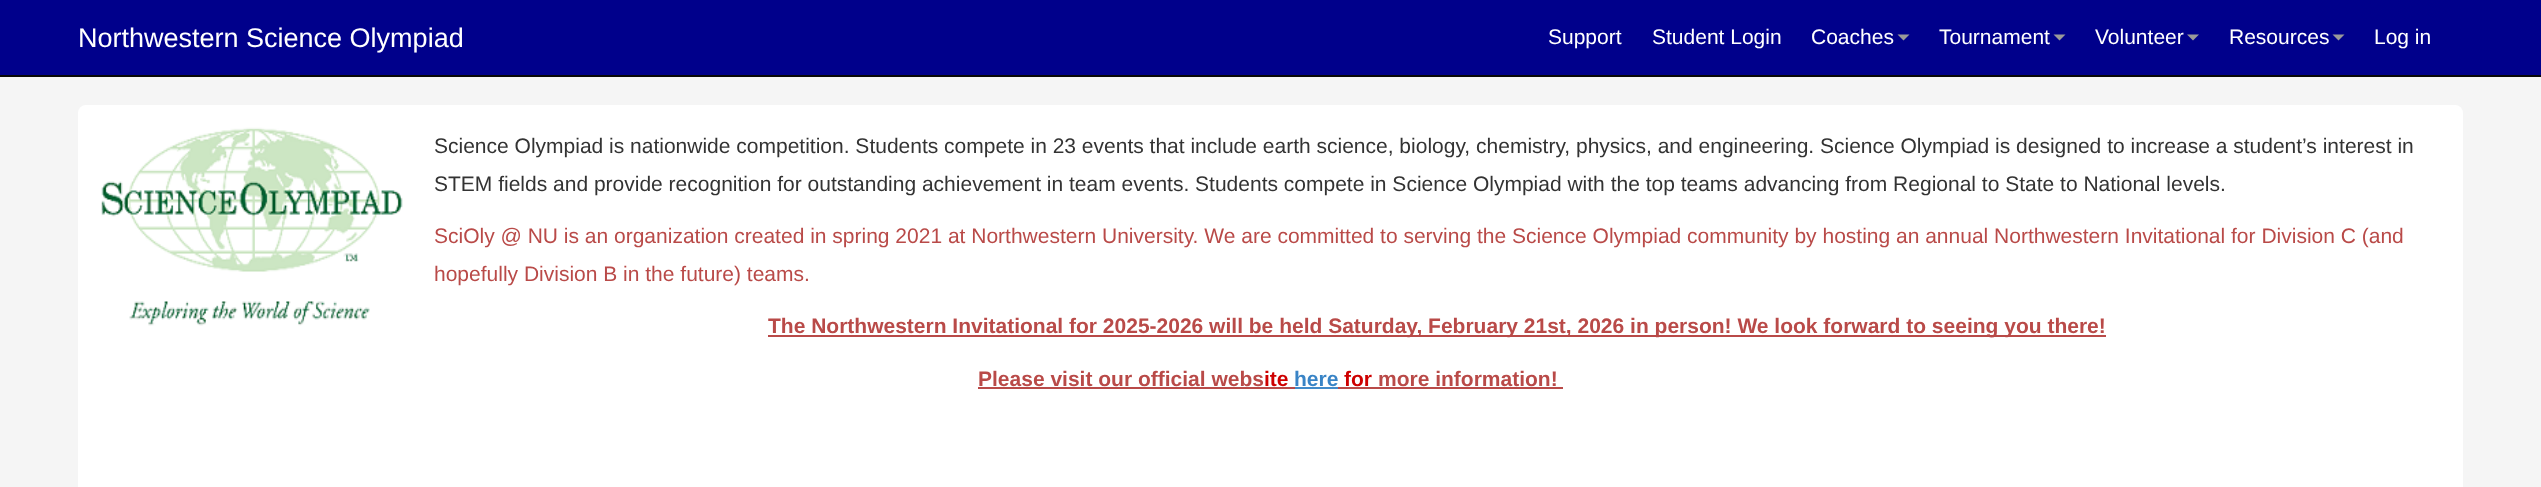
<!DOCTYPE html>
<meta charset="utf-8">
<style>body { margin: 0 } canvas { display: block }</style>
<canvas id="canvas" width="2541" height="487"></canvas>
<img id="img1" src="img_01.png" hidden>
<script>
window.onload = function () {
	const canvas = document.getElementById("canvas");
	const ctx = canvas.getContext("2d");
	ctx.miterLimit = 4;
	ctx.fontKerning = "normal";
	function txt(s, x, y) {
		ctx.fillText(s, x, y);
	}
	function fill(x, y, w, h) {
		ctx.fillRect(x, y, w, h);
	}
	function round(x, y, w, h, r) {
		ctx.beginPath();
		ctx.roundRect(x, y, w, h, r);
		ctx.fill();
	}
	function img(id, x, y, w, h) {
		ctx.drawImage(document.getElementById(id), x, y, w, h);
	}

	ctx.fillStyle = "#F5F5F5";
	fill(0, 0, 2541, 487);
	ctx.fillStyle = "#00008B";
	fill(0, 0, 2541, 75);
	ctx.fillStyle = "#080808";
	fill(0, 75, 2541, 2);
	ctx.fillStyle = "#999999";
	ctx.beginPath();
	ctx.moveTo(1897.5, 34.5);
	ctx.lineTo(1909.5, 34.5);
	ctx.lineTo(1903.5, 40.5);
	ctx.closePath();
	ctx.fill();
	ctx.beginPath();
	ctx.moveTo(2053.5, 34.5);
	ctx.lineTo(2065.5, 34.5);
	ctx.lineTo(2059.5, 40.5);
	ctx.closePath();
	ctx.fill();
	ctx.beginPath();
	ctx.moveTo(2187, 34.5);
	ctx.lineTo(2199, 34.5);
	ctx.lineTo(2193, 40.5);
	ctx.closePath();
	ctx.fill();
	ctx.beginPath();
	ctx.moveTo(2332.5, 34.5);
	ctx.lineTo(2344.5, 34.5);
	ctx.lineTo(2338.5, 40.5);
	ctx.closePath();
	ctx.fill();
	ctx.fillStyle = "#FFFFFF";
	round(78, 105, 2385, 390, 8);
	img("img1", 101, 127, 302, 199);
	ctx.fillStyle = "#B94A48";
	fill(768, 335, 1338, 2);
	fill(978, 387, 317, 2);
	ctx.fillStyle = "#428BCA";
	fill(1295, 387, 43, 2);
	ctx.fillStyle = "#B94A48";
	fill(1338, 387, 225, 2);
	ctx.font = "27px Liberation Sans";
	ctx.fillStyle = "#FFFFFF";
	txt("Northwestern Science Olympiad", 78, 47);
	ctx.font = "21px Liberation Sans";
	txt("Support", 1548, 44);
	txt("Student Login", 1652, 44);
	txt("Coaches", 1811, 44);
	txt("Tournament", 1939, 44);
	txt("Volunteer", 2095, 44);
	txt("Resources", 2229, 44);
	txt("Log in", 2374, 44);
	ctx.fillStyle = "#333333";
	txt("Science Olympiad is nationwide competition. Students compete in 23 events that include earth science, biology, chemistry, physics, and engineering. Science Olympiad is designed to increase a student’s interest in", 434, 153);
	txt("STEM fields and provide recognition for outstanding achievement in team events. Students compete in Science Olympiad with the top teams advancing from Regional to State to National levels.", 434, 191);
	ctx.fillStyle = "#B94A48";
	txt("SciOly @ NU is an organization created in spring 2021 at Northwestern University. We are committed to serving the Science Olympiad community by hosting an annual Northwestern Invitational for Division C (and", 434, 243);
	txt("hopefully Division B in the future) teams.", 434, 281);
	ctx.font = "bold 21px Liberation Sans";
	txt("The Northwestern Invitational for 2025-2026 will be held Saturday, February 21st, 2026 in person! We look forward to seeing you there!", 768, 333);
	txt("Please visit our official webs", 978, 386);
	ctx.fillStyle = "#CE0000";
	txt("ite", 1264, 386);
	ctx.fillStyle = "#3984C6";
	txt("here", 1294, 386);
	ctx.fillStyle = "#CE0000";
	txt("for", 1344, 386);
	ctx.fillStyle = "#B94A48";
	txt("more information!", 1378, 386);
};
</script>
